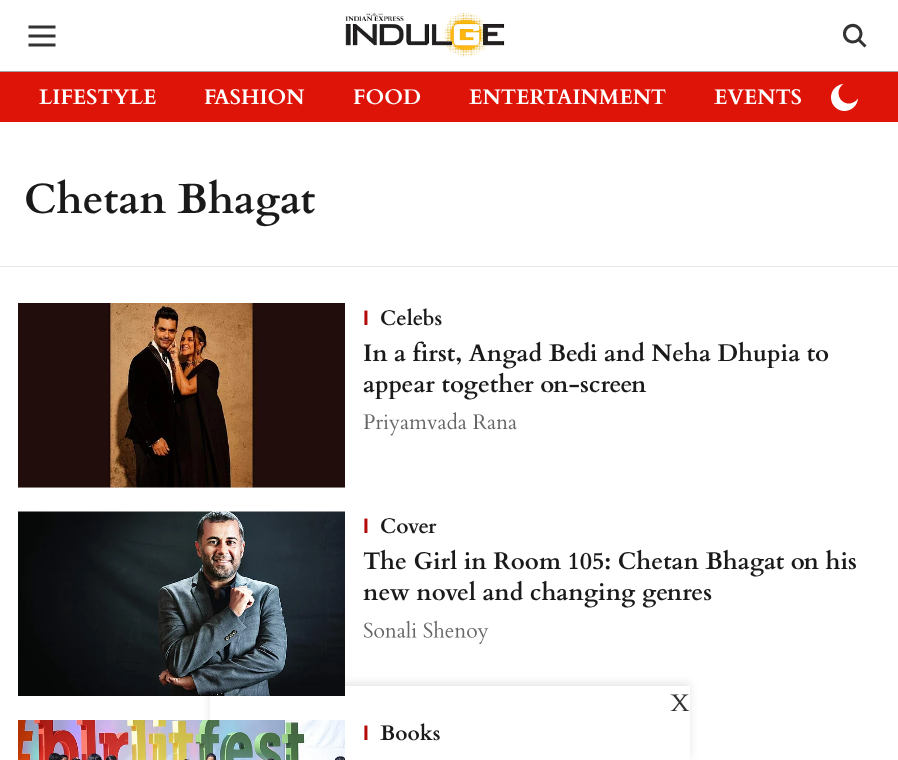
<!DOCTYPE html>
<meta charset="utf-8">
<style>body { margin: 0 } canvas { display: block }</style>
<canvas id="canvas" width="898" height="760"></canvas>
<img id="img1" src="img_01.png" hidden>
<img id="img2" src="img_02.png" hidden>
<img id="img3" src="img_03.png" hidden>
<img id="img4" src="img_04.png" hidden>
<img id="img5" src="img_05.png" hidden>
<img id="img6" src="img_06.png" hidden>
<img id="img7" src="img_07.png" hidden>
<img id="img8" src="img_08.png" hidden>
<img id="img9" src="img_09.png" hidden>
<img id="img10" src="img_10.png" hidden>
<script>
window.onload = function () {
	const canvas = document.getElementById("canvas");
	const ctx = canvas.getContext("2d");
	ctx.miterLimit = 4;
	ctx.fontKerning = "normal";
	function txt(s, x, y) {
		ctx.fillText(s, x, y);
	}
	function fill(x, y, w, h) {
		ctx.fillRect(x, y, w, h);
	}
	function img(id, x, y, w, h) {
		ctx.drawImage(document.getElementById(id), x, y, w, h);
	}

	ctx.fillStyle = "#FFFFFF";
	fill(0, 0, 898, 760);
	ctx.fillStyle = "#A4A4A4";
	fill(0, 71, 898, 1);
	img("img1", 28, 25, 28, 22);
	img("img2", 345, 12, 160, 45);
	img("img3", 843, 23, 24, 25);
	ctx.fillStyle = "#DE1409";
	fill(0, 72, 898, 50);
	img("img4", 831, 84, 27, 27);
	ctx.fillStyle = "#E6E6E6";
	fill(0, 266, 898, 1);
	ctx.fillStyle = "#F0F0F0";
	fill(18, 487, 327, 1);
	img("img5", 18, 303, 327, 185);
	img("img6", 363, 412, 154, 24);
	img("img7", 18, 511, 327, 185);
	img("img8", 363, 620, 126, 24);
	img("img9", 18, 720, 327, 40);
	ctx.save();
	ctx.beginPath();
	ctx.moveTo(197, 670);
	ctx.lineTo(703, 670);
	ctx.lineTo(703, 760);
	ctx.lineTo(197, 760);
	ctx.closePath();
	ctx.moveTo(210, 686);
	ctx.lineTo(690, 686);
	ctx.lineTo(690, 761);
	ctx.lineTo(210, 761);
	ctx.closePath();
	ctx.clip("evenodd");
	ctx.fillStyle = "rgba(0, 0, 0, 0.1)";
	ctx.filter = "blur(4px)";
	ctx.beginPath();
	ctx.rect(210, 683, 480, 75);
	ctx.fill();
	ctx.filter = "none";
	ctx.restore();
	img("img10", 670, 694, 20, 17);
	ctx.font = "bold 21px Cardo";
	ctx.fillStyle = "#FFFFFF";
	txt("LIFESTYLE", 39, 104);
	txt("FASHION", 204, 104);
	txt("FOOD", 353, 104);
	txt("ENTERTAINMENT", 469, 104);
	txt("EVENTS", 714, 104);
	ctx.font = "bold 42px Cardo";
	ctx.fillStyle = "#1A1A1A";
	txt("Chetan Bhagat", 24, 213);
	ctx.font = "bold 21px Liberation Sans";
	ctx.fillStyle = "#B30A0A";
	txt("I", 363, 325);
	ctx.font = "bold 21px Cardo";
	ctx.fillStyle = "#1A1A1A";
	txt("Celebs", 380, 325);
	ctx.font = "bold 24px Cardo";
	txt("In a first, Angad Bedi and Neha Dhupia to", 363, 361);
	txt("appear together on-screen", 363, 392);
	ctx.font = "bold 21px Liberation Sans";
	ctx.fillStyle = "#B30A0A";
	txt("I", 363, 533);
	ctx.font = "bold 21px Cardo";
	ctx.fillStyle = "#1A1A1A";
	txt("Cover", 380, 533);
	ctx.font = "bold 24px Cardo";
	txt("The Girl in Room 105: Chetan Bhagat on his", 363, 569);
	txt("new novel and changing genres", 363, 600);
	ctx.font = "bold 21px Liberation Sans";
	ctx.fillStyle = "#B30A0A";
	txt("I", 363, 740);
	ctx.font = "bold 21px Cardo";
	ctx.fillStyle = "#1A1A1A";
	txt("Books", 380, 740);
};
</script>
